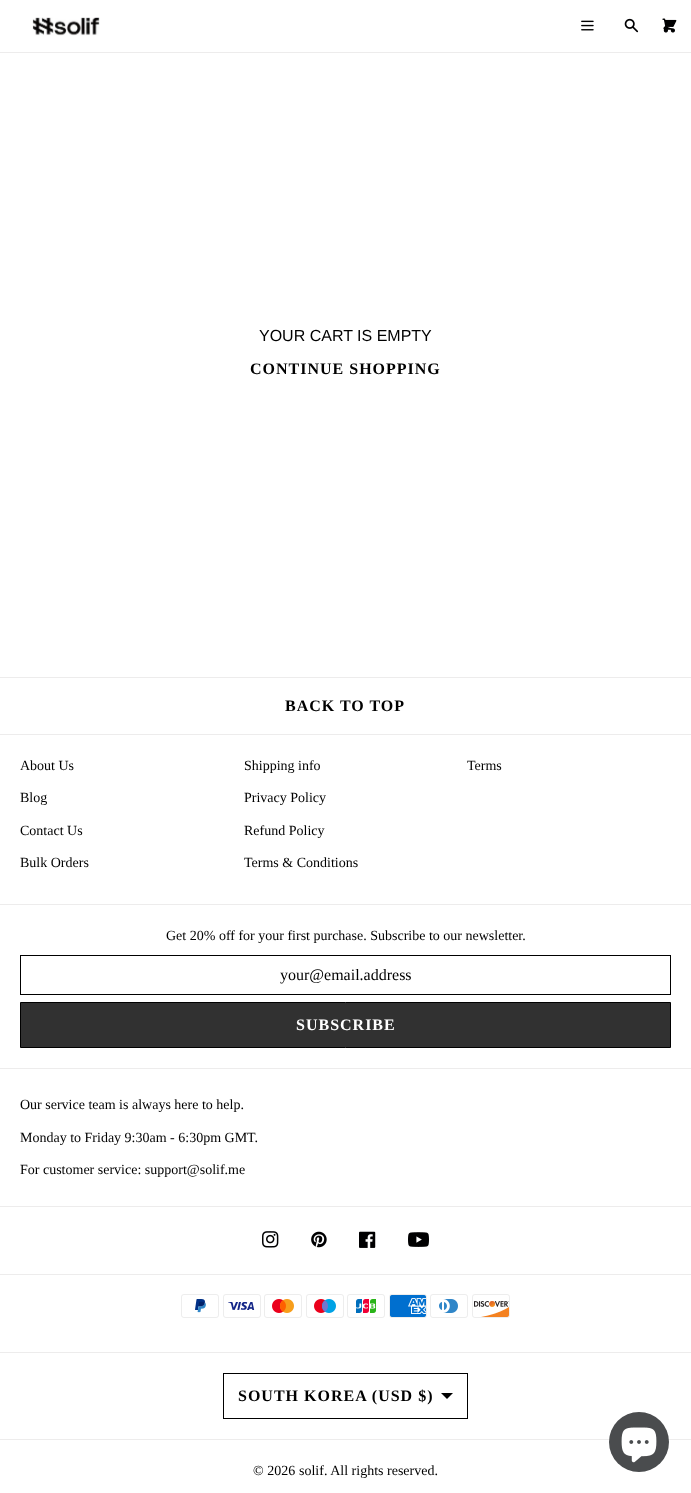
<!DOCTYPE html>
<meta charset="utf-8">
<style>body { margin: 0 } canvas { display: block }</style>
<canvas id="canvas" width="691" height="1493"></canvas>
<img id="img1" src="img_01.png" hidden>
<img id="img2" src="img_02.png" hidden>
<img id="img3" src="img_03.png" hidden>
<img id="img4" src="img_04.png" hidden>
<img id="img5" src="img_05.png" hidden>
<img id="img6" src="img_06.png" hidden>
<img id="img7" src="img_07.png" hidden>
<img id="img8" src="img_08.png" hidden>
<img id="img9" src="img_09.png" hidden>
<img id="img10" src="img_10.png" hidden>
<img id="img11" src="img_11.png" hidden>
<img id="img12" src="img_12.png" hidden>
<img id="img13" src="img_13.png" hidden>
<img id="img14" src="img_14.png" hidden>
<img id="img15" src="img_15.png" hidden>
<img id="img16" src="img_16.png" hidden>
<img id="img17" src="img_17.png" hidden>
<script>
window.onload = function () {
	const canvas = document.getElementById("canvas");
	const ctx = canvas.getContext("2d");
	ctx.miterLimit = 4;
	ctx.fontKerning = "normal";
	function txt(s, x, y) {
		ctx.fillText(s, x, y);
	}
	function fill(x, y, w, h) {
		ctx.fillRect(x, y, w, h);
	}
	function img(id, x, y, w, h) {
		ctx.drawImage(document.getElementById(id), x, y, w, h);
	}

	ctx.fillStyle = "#FFFFFF";
	fill(0, 0, 691, 1493);
	ctx.fillStyle = "#EDECEC";
	fill(0, 52, 691, 1);
	img("img1", 32, 17, 68, 19);
	img("img2", 581, 20, 13, 11);
	img("img3", 624, 18, 15, 15);
	img("img4", 662, 18, 15, 15);
	fill(0, 677, 691, 1);
	ctx.strokeStyle = "#EDECEC";
	ctx.strokeRect(-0.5, 734.5, 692, 170);
	ctx.strokeStyle = "#000000";
	ctx.strokeRect(20.5, 955.5, 650, 39);
	ctx.fillStyle = "#313131";
	ctx.beginPath();
	ctx.rect(20.5, 1002.5, 650, 45);
	ctx.fill();
	ctx.stroke();
	ctx.strokeStyle = "#EDECEC";
	ctx.strokeRect(-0.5, 904.5, 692, 164);
	ctx.strokeRect(-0.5, 1068.5, 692, 138);
	ctx.strokeRect(-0.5, 1206.5, 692, 68);
	img("img5", 262, 1231, 17, 17);
	img("img6", 311, 1231, 16, 17);
	img("img7", 359, 1231, 17, 17);
	img("img8", 408, 1232, 21, 15);
	ctx.fillStyle = "#EDECEC";
	fill(0, 1439, 691, 1);
	fill(0, 1352, 691, 1);
	img("img9", 181, 1294, 38, 24);
	img("img10", 223, 1294, 38, 24);
	img("img11", 264, 1294, 38, 24);
	img("img12", 306, 1294, 38, 24);
	img("img13", 347, 1294, 38, 24);
	img("img14", 389, 1294, 38, 24);
	img("img15", 430, 1294, 38, 24);
	img("img16", 472, 1294, 38, 24);
	ctx.strokeStyle = "#000000";
	ctx.strokeRect(223.5, 1373.5, 244, 45);
	ctx.fillStyle = "#000000";
	ctx.beginPath();
	ctx.moveTo(441, 1393);
	ctx.lineTo(453, 1393);
	ctx.lineTo(447, 1399);
	ctx.closePath();
	ctx.fill();
	ctx.fillStyle = "#4A4C4E";
	ctx.beginPath();
	ctx.arc(639, 1442, 30, 0, Math.PI * 2);
	ctx.fill();
	img("img17", 621, 1427, 36, 36);
	ctx.font = "16px Liberation Sans";
	ctx.fillStyle = "#000000";
	txt("YOUR CART IS EMPTY", 259, 341);
	ctx.letterSpacing = "1px";
	ctx.font = "bold 16px Liberation Serif";
	txt("CONTINUE SHOPPING", 250, 374);
	txt("BACK TO TOP", 285, 711);
	ctx.letterSpacing = "0px";
	ctx.font = "14px Liberation Serif";
	txt("About Us", 20, 770);
	txt("Blog", 20, 802);
	txt("Contact Us", 20, 835);
	txt("Bulk Orders", 20, 867);
	txt("Shipping info", 244, 770);
	txt("Privacy Policy", 244, 802);
	txt("Refund Policy", 244, 835);
	txt("Terms & Conditions", 244, 867);
	txt("Terms", 467, 770);
	txt("Get 20% off for your first purchase. Subscribe to our newsletter.", 166, 940);
	ctx.font = "16px Liberation Serif";
	txt("your@email.address", 280, 980);
	ctx.letterSpacing = "1px";
	ctx.font = "bold 16px Liberation Serif";
	ctx.fillStyle = "#FFFFFF";
	txt("SUBSCRIBE", 296, 1030);
	ctx.letterSpacing = "0px";
	ctx.font = "14px Liberation Serif";
	ctx.fillStyle = "#000000";
	txt("Our service team is always here to help.", 20, 1109);
	txt("Monday to Friday 9:30am - 6:30pm GMT.", 20, 1142);
	txt("For customer service: support@solif.me", 20, 1174);
	ctx.letterSpacing = "1px";
	ctx.font = "bold 16px Liberation Serif";
	txt("SOUTH KOREA (USD $)", 238, 1401);
	ctx.letterSpacing = "0px";
	ctx.font = "14px Liberation Serif";
	txt("© 2026", 253, 1475);
	txt("solif", 299, 1475);
	txt(". All rights reserved.", 324, 1475);
};
</script>
